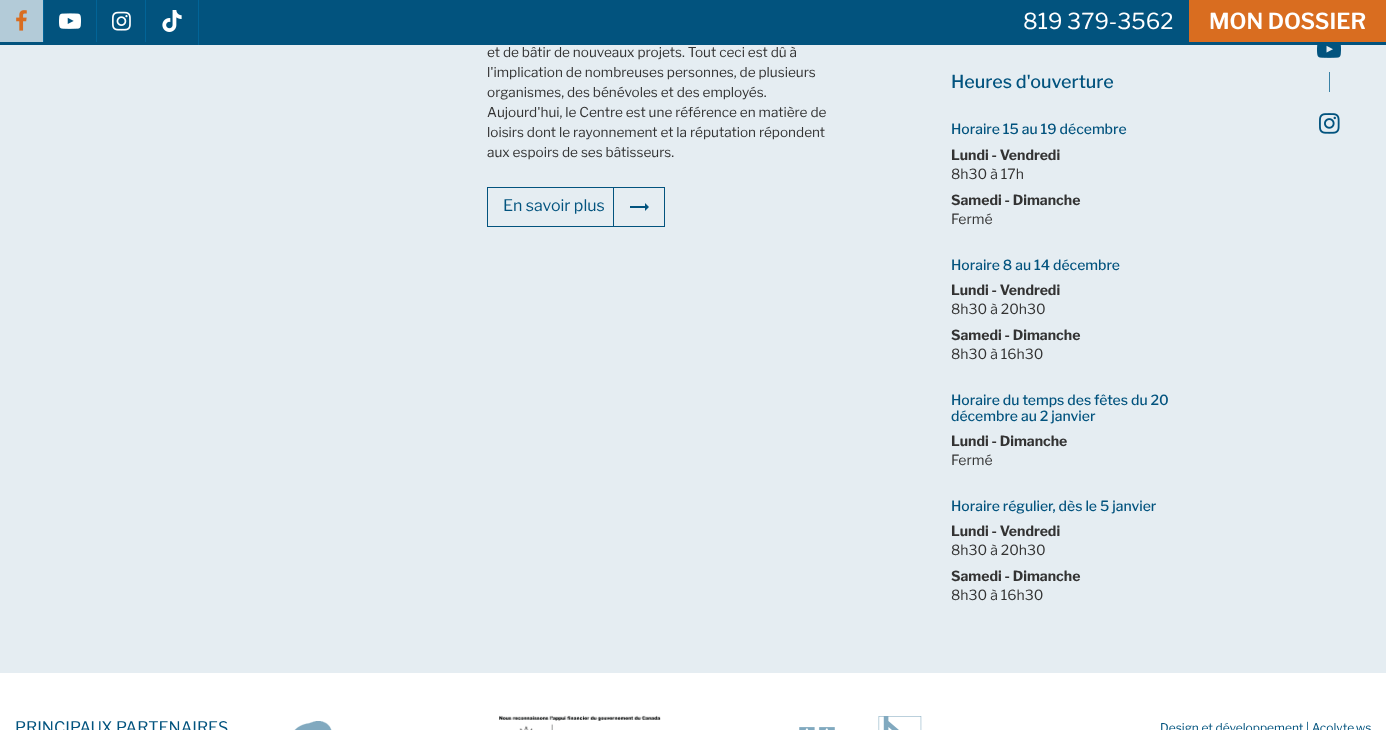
<!DOCTYPE html>
<meta charset="utf-8">
<style>body { margin: 0 } canvas { display: block }</style>
<canvas id="canvas" width="1386" height="730"></canvas>
<img id="img1" src="img_01.png" hidden>
<img id="img2" src="img_02.png" hidden>
<img id="img3" src="img_03.png" hidden>
<img id="img4" src="img_04.png" hidden>
<img id="img5" src="img_05.png" hidden>
<img id="img6" src="img_06.png" hidden>
<img id="img7" src="img_07.png" hidden>
<img id="img8" src="img_08.png" hidden>
<img id="img9" src="img_09.png" hidden>
<img id="img10" src="img_10.png" hidden>
<img id="img11" src="img_11.png" hidden>
<script>
window.onload = function () {
	const canvas = document.getElementById("canvas");
	const ctx = canvas.getContext("2d");
	ctx.miterLimit = 4;
	ctx.fontKerning = "normal";
	function txt(s, x, y) {
		ctx.fillText(s, x, y);
	}
	function fill(x, y, w, h) {
		ctx.fillRect(x, y, w, h);
	}
	function img(id, x, y, w, h) {
		ctx.drawImage(document.getElementById(id), x, y, w, h);
	}

	ctx.fillStyle = "#FFFFFF";
	fill(0, 0, 1386, 730);
	ctx.fillStyle = "#02537E";
	fill(0, 0, 1386, 45);
	ctx.fillStyle = "#B3CBD8";
	fill(0, 0, 43, 42);
	ctx.fillStyle = "#026497";
	fill(43, 0, 1, 42);
	img("img1", 16, 10, 11, 21);
	fill(96, 0, 1, 42);
	img("img2", 59, 13, 22, 16);
	fill(145, 0, 1, 42);
	img("img3", 112, 11, 19, 20);
	fill(198, 0, 1, 45);
	img("img4", 162, 10, 20, 22);
	ctx.fillStyle = "#D96D20";
	fill(1189, 0, 197, 42);
	ctx.fillStyle = "#E5EDF2";
	fill(0, 45, 1386, 628);
	ctx.strokeStyle = "#02537E";
	ctx.strokeRect(487.5, 187.5, 177, 39);
	ctx.fillStyle = "#02537E";
	fill(613, 188, 1, 38);
	img("img5", 630, 203, 19, 8);
	img("img6", 1317, 45, 24, 13);
	ctx.fillStyle = "#3A82A6";
	fill(1329, 72, 1, 20);
	img("img7", 1319, 113, 21, 21);
	img("img8", 294, 721, 38, 9);
	img("img9", 499, 715, 162, 15);
	img("img10", 799, 727, 36, 3);
	img("img11", 878, 716, 44, 14);
	ctx.font = "22px Libre Franklin";
	ctx.fillStyle = "#FFFFFF";
	txt("819 379-3562", 1023, 29);
	ctx.font = "600 22px Libre Franklin";
	txt("MON DOSSIER", 1209, 29);
	ctx.font = "13.6px Libre Franklin";
	ctx.fillStyle = "#333333";
	txt("et de bâtir de nouveaux projets. Tout ceci est dû à", 487, 57);
	txt("l'implication de nombreuses personnes, de plusieurs", 487, 77);
	txt("organismes, des bénévoles et des employés.", 487, 97);
	txt("Aujourd'hui, le Centre est une référence en matière de", 487, 117);
	txt("loisirs dont le rayonnement et la réputation répondent", 487, 137);
	txt("aux espoirs de ses bâtisseurs.", 487, 157);
	ctx.font = "16px Libre Franklin";
	ctx.fillStyle = "#02537E";
	txt("En savoir plus", 503, 211);
	ctx.font = "500 18px Libre Franklin";
	txt("Heures d'ouverture", 951, 88);
	ctx.font = "500 14px Libre Franklin";
	txt("Horaire 15 au 19 décembre", 951, 134);
	ctx.font = "bold 14px Libre Franklin";
	ctx.fillStyle = "#333333";
	txt("Lundi - Vendredi", 951, 160);
	ctx.font = "14px Libre Franklin";
	txt("8h30 à 17h", 951, 179);
	ctx.font = "bold 14px Libre Franklin";
	txt("Samedi - Dimanche", 951, 205);
	ctx.font = "14px Libre Franklin";
	txt("Fermé", 951, 224);
	ctx.font = "500 14px Libre Franklin";
	ctx.fillStyle = "#02537E";
	txt("Horaire 8 au 14 décembre", 951, 270);
	ctx.font = "bold 14px Libre Franklin";
	ctx.fillStyle = "#333333";
	txt("Lundi - Vendredi", 951, 295);
	ctx.font = "14px Libre Franklin";
	txt("8h30 à 20h30", 951, 314);
	ctx.font = "bold 14px Libre Franklin";
	txt("Samedi - Dimanche", 951, 340);
	ctx.font = "14px Libre Franklin";
	txt("8h30 à 16h30", 951, 359);
	ctx.font = "500 14px Libre Franklin";
	ctx.fillStyle = "#02537E";
	txt("Horaire du temps des fêtes du 20", 951, 405);
	txt("décembre au 2 janvier", 951, 421);
	ctx.font = "bold 14px Libre Franklin";
	ctx.fillStyle = "#333333";
	txt("Lundi - Dimanche", 951, 446);
	ctx.font = "14px Libre Franklin";
	txt("Fermé", 951, 465);
	ctx.font = "500 14px Libre Franklin";
	ctx.fillStyle = "#02537E";
	txt("Horaire régulier, dès le 5 janvier", 951, 511);
	ctx.font = "bold 14px Libre Franklin";
	ctx.fillStyle = "#333333";
	txt("Lundi - Vendredi", 951, 536);
	ctx.font = "14px Libre Franklin";
	txt("8h30 à 20h30", 951, 555);
	ctx.font = "bold 14px Libre Franklin";
	txt("Samedi - Dimanche", 951, 581);
	ctx.font = "14px Libre Franklin";
	txt("8h30 à 16h30", 951, 600);
	ctx.font = "16px Libre Franklin";
	ctx.fillStyle = "#02537E";
	txt("PRINCIPAUX PARTENAIRES", 15, 733);
	ctx.font = "12px Libre Franklin";
	txt("Design et développement | Acolyte.ws", 1160, 732);
};
</script>
